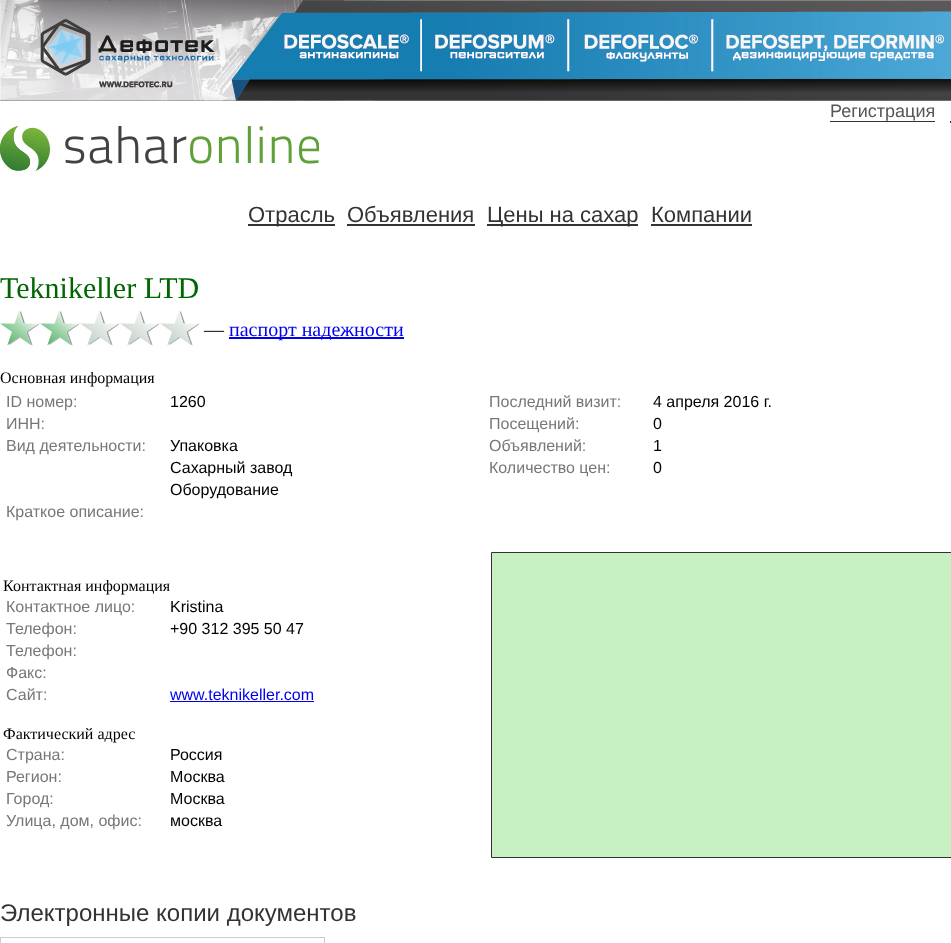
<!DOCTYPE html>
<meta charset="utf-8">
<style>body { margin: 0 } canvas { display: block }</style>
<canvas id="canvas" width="951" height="943"></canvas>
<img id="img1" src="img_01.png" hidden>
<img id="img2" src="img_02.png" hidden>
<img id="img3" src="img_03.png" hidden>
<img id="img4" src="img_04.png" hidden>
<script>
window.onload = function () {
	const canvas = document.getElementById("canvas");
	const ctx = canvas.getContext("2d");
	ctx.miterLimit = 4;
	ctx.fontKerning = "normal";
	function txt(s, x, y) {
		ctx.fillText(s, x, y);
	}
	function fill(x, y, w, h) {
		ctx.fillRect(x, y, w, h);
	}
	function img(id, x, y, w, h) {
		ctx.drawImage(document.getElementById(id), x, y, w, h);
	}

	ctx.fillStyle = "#FFFFFF";
	fill(0, 0, 951, 943);
	ctx.fillStyle = "#999999";
	fill(0, 100, 951, 1);
	img("img1", 0, 0, 951, 101);
	ctx.fillStyle = "#333333";
	fill(830, 121, 105, 1);
	ctx.beginPath();
	ctx.moveTo(950, 122.5);
	ctx.lineTo(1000, 122.5);
	ctx.moveTo(950, 121.5);
	ctx.lineTo(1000, 121.5);
	ctx.strokeStyle = "#333333";
	ctx.setLineDash([3, 2.22]);
	ctx.stroke();
	img("img2", 0, 126, 319, 45);
	fill(248, 224, 87, 2);
	fill(347, 224, 128, 2);
	fill(487, 224, 151, 2);
	fill(651, 224, 101, 2);
	img("img3", 18, 310, 182, 36);
	img("img4", 0, 311, 77, 35);
	ctx.fillStyle = "#0000EE";
	fill(229, 337, 175, 2);
	fill(170, 701, 144, 1);
	ctx.fillStyle = "#C8F1C3";
	ctx.beginPath();
	ctx.rect(491.5, 552.5, 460, 305);
	ctx.fill();
	ctx.setLineDash([]);
	ctx.stroke();
	ctx.fillStyle = "#CCCCCC";
	fill(0, 937, 325, 6);
	ctx.fillStyle = "#FFFFFF";
	fill(1, 938, 323, 5);
	ctx.font = "18px Liberation Sans";
	ctx.fillStyle = "#555555";
	txt("Регистрация", 830, 117);
	ctx.font = "22px Liberation Sans";
	ctx.fillStyle = "#333333";
	txt("Отрасль", 248, 222);
	txt("Объявления", 347, 222);
	txt("Цены на сахар", 487, 222);
	txt("Компании", 651, 222);
	ctx.font = "30px Liberation Serif";
	ctx.fillStyle = "#006600";
	txt("Teknikeller LTD", 0, 298);
	ctx.font = "20px Liberation Serif";
	ctx.fillStyle = "#000000";
	txt("—", 204, 336);
	ctx.fillStyle = "#0000EE";
	txt("паспорт надежности", 229, 336);
	ctx.font = "16px Liberation Serif";
	ctx.fillStyle = "#000000";
	txt("Основная информация", 0, 383);
	ctx.font = "16px Liberation Sans";
	ctx.fillStyle = "#777777";
	txt("ID номер:", 6, 407);
	ctx.fillStyle = "#000000";
	txt("1260", 170, 407);
	ctx.fillStyle = "#777777";
	txt("ИНН:", 6, 429);
	txt("Вид деятельности:", 6, 451);
	ctx.fillStyle = "#000000";
	txt("Упаковка", 170, 451);
	txt("Сахарный завод", 170, 473);
	txt("Оборудование", 170, 495);
	ctx.fillStyle = "#777777";
	txt("Краткое описание:", 6, 517);
	txt("Последний визит:", 489, 407);
	ctx.fillStyle = "#000000";
	txt("4 апреля 2016 г.", 653, 407);
	ctx.fillStyle = "#777777";
	txt("Посещений:", 489, 429);
	ctx.fillStyle = "#000000";
	txt("0", 653, 429);
	ctx.fillStyle = "#777777";
	txt("Объявлений:", 489, 451);
	ctx.fillStyle = "#000000";
	txt("1", 653, 451);
	ctx.fillStyle = "#777777";
	txt("Количество цен:", 489, 473);
	ctx.fillStyle = "#000000";
	txt("0", 653, 473);
	ctx.font = "16px Liberation Serif";
	txt("Контактная информация", 3, 591);
	ctx.font = "16px Liberation Sans";
	ctx.fillStyle = "#777777";
	txt("Контактное лицо:", 6, 612);
	ctx.fillStyle = "#000000";
	txt("Kristina", 170, 612);
	ctx.fillStyle = "#777777";
	txt("Телефон:", 6, 634);
	ctx.fillStyle = "#000000";
	txt("+90 312 395 50 47", 170, 634);
	ctx.fillStyle = "#777777";
	txt("Телефон:", 6, 656);
	txt("Факс:", 6, 678);
	txt("Сайт:", 6, 700);
	ctx.fillStyle = "#0000EE";
	txt("www.teknikeller.com", 170, 700);
	ctx.font = "16px Liberation Serif";
	ctx.fillStyle = "#000000";
	txt("Фактический адрес", 3, 739);
	ctx.font = "16px Liberation Sans";
	ctx.fillStyle = "#777777";
	txt("Страна:", 6, 760);
	ctx.fillStyle = "#000000";
	txt("Россия", 170, 760);
	ctx.fillStyle = "#777777";
	txt("Регион:", 6, 782);
	ctx.fillStyle = "#000000";
	txt("Москва", 170, 782);
	ctx.fillStyle = "#777777";
	txt("Город:", 6, 804);
	ctx.fillStyle = "#000000";
	txt("Москва", 170, 804);
	ctx.fillStyle = "#777777";
	txt("Улица, дом, офис:", 6, 826);
	ctx.fillStyle = "#000000";
	txt("москва", 170, 826);
	ctx.font = "24px Liberation Sans";
	ctx.fillStyle = "#333333";
	txt("Электронные копии документов", 0, 921);
};
</script>
